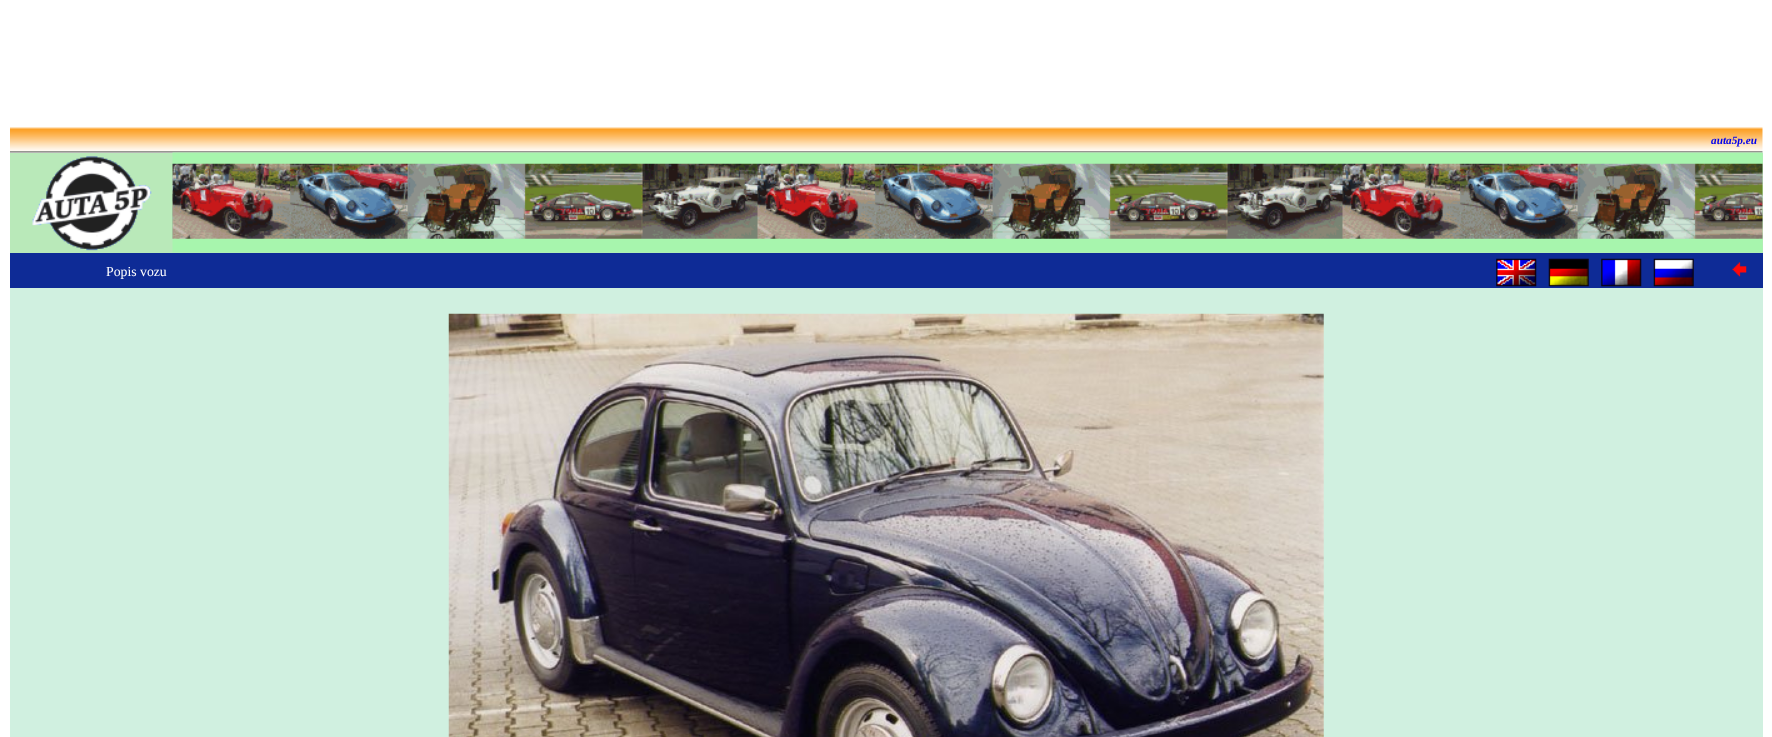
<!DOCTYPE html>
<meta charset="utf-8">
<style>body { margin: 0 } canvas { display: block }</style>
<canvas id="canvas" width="1772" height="737"></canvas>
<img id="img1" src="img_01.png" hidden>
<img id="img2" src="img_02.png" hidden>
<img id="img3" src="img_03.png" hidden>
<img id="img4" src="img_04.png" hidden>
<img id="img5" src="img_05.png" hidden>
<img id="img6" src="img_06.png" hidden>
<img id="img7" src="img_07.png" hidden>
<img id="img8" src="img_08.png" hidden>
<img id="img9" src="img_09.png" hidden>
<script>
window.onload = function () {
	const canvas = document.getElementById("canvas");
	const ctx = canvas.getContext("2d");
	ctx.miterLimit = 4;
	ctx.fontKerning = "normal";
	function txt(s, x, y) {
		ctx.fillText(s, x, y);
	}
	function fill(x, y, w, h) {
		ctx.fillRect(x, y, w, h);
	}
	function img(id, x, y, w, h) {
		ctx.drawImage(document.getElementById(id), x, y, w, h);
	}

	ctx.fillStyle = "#FFFFFF";
	fill(0, 0, 1772, 737);
	img("img1", 10, 127, 1753, 26);
	ctx.fillStyle = "#B9E9B9";
	fill(10, 153, 1753, 100);
	img("img2", 32, 156, 120, 95);
	img("img3", 172, 152, 1591, 101);
	ctx.fillStyle = "#0E2B96";
	fill(10, 253, 1753, 35);
	img("img4", 1496, 258, 41, 29);
	img("img5", 1548, 258, 41, 29);
	img("img6", 1601, 258, 41, 29);
	img("img7", 1653, 258, 41, 29);
	img("img8", 1732, 262, 15, 15);
	ctx.fillStyle = "#D0F0E0";
	fill(10, 288, 1753, 449);
	img("img9", 448, 313, 876, 424);
	ctx.font = "italic bold 11.25px Liberation Serif";
	ctx.fillStyle = "#0000EE";
	txt("auta5p.eu", 1711, 144);
	ctx.font = "13.75px Liberation Serif";
	ctx.fillStyle = "#FFFFFF";
	txt("Popis vozu", 106, 276);
};
</script>
